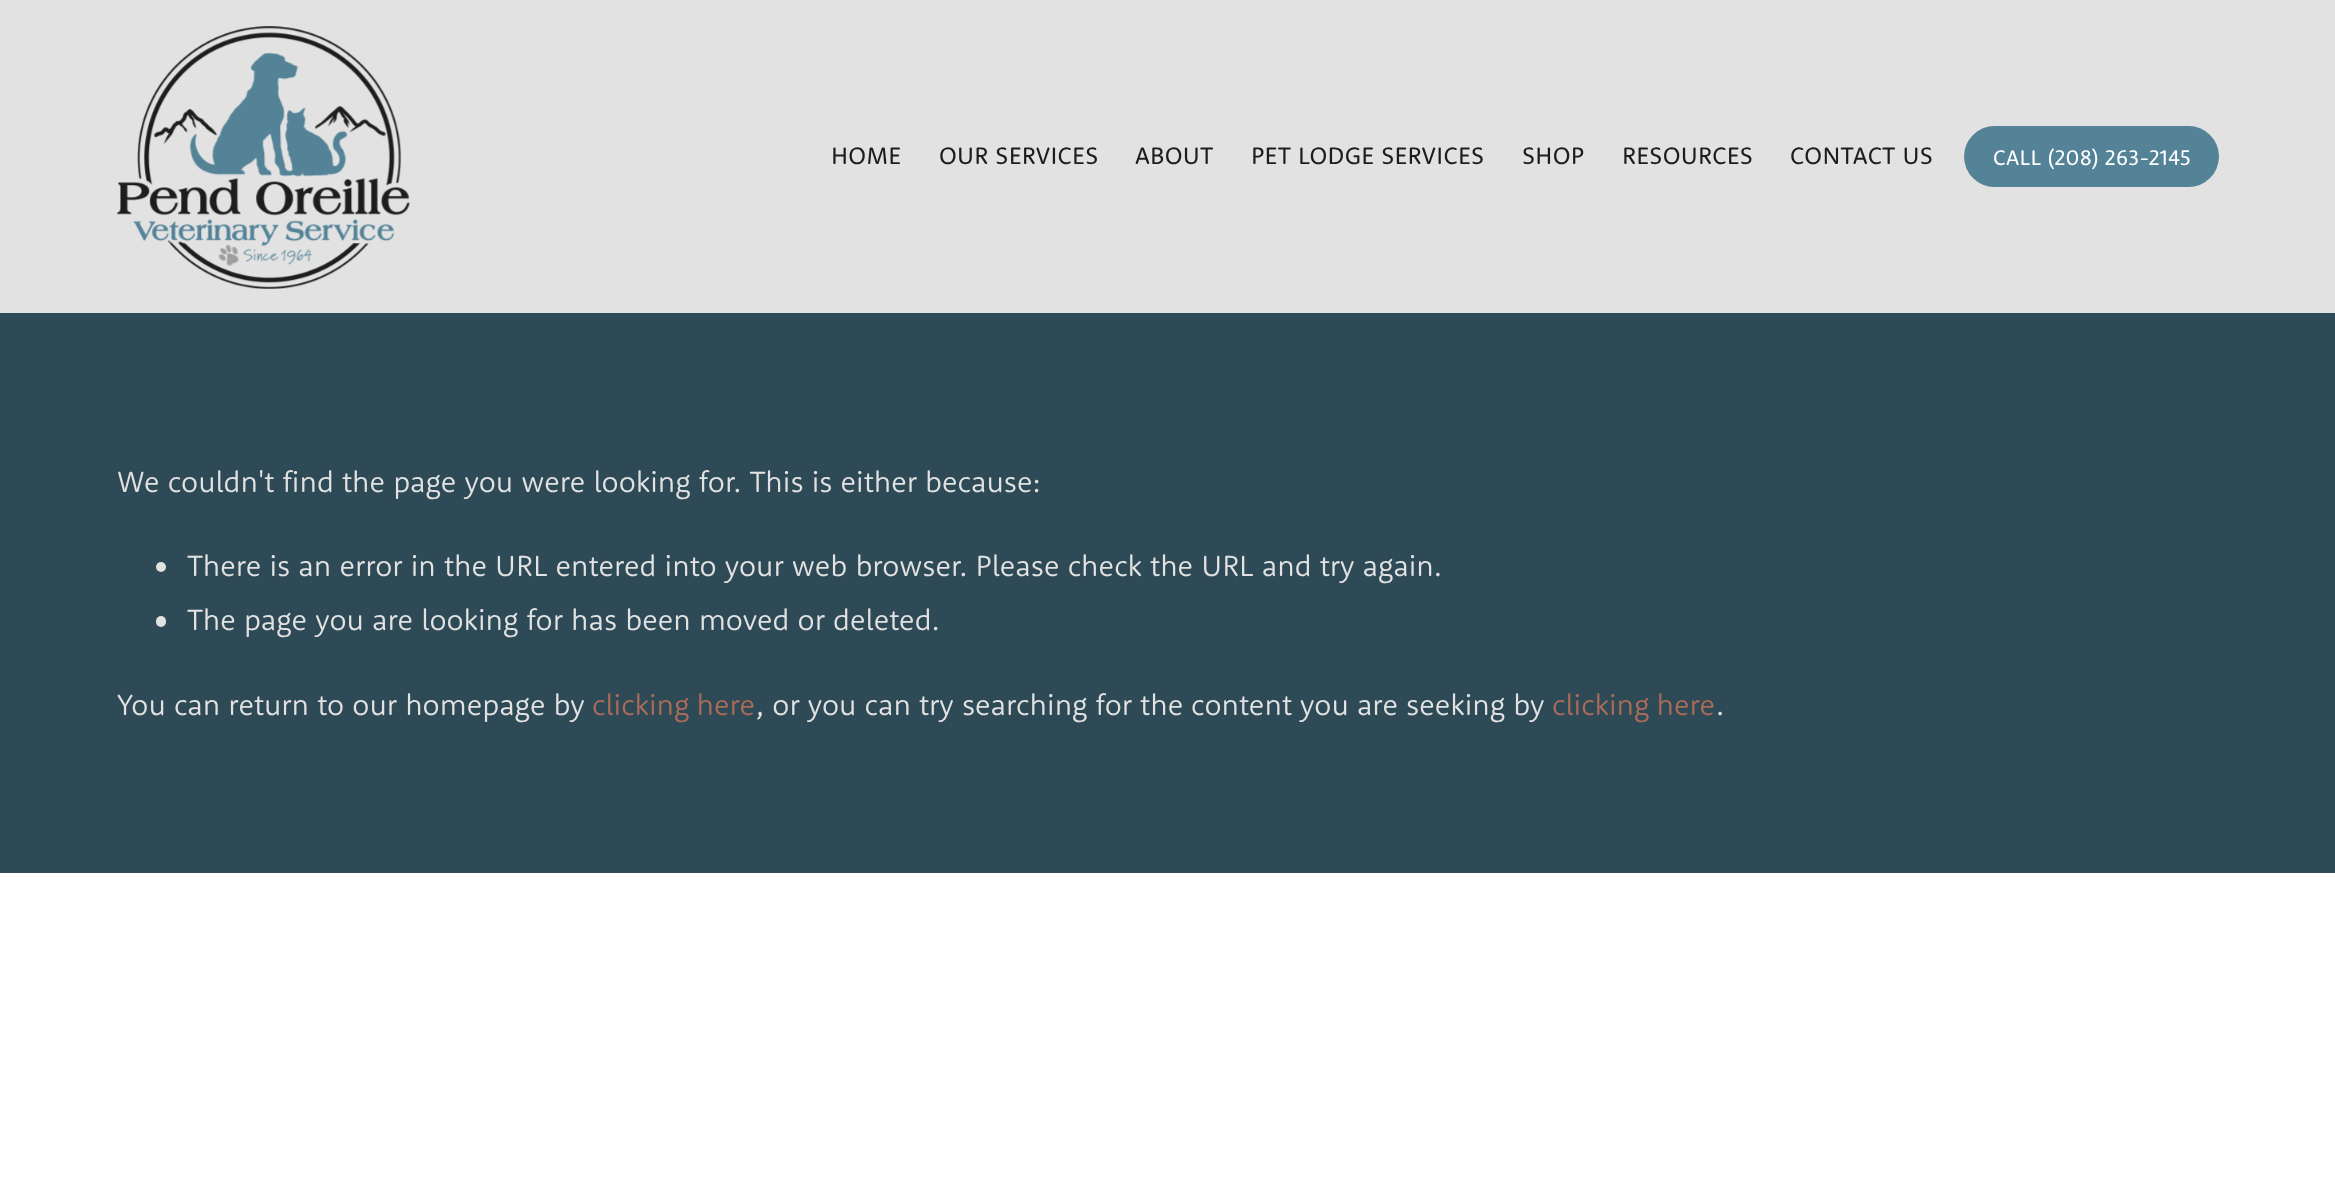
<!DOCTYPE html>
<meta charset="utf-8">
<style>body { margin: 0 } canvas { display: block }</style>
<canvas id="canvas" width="2335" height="1200"></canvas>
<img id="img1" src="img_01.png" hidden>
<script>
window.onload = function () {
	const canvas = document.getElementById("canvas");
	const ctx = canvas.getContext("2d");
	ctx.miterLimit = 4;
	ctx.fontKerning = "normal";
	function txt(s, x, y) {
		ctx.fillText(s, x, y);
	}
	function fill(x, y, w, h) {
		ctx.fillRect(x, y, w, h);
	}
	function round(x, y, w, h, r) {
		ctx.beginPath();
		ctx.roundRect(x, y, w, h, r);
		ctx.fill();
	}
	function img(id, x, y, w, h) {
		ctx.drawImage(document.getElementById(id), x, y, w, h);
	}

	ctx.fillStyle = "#2E4A57";
	fill(0, 0, 2335, 1200);
	ctx.fillStyle = "#E2E2E2";
	fill(0, 0, 2335, 313);
	img("img1", 117, 26, 293, 263);
	ctx.fillStyle = "#548398";
	round(1964, 126, 255, 61, 30.5);
	ctx.fillStyle = "#E2E2E2";
	ctx.beginPath();
	ctx.arc(161, 567, 5, 0, Math.PI * 2);
	ctx.fill();
	round(156, 616, 10, 11, 5);
	ctx.fillStyle = "#FFFFFF";
	fill(0, 873, 2335, 327);
	ctx.letterSpacing = "0.25px";
	ctx.font = "24.5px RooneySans";
	ctx.fillStyle = "#1D1D1B";
	txt("HOME", 831, 164);
	txt("OUR SERVICES", 939, 164);
	txt("ABOUT", 1135, 164);
	txt("PET LODGE SERVICES", 1251, 164);
	txt("SHOP", 1522, 164);
	txt("RESOURCES", 1622, 164);
	txt("CONTACT US", 1790, 164);
	ctx.letterSpacing = "0.4px";
	ctx.font = "21.75px RooneySans";
	ctx.fillStyle = "#FFFFFF";
	txt("CALL (208) 263-2145", 1993, 165);
	ctx.letterSpacing = "0px";
	ctx.font = "300 30.1px RooneySans";
	ctx.fillStyle = "#E2E2E2";
	txt("We couldn't find the page you were looking for. This is either because:", 117, 492);
	txt("There is an error in the URL entered into your web browser. Please check the URL and try again.", 187, 576);
	txt("The page you are looking for has been moved or deleted.", 187, 630);
	txt("You can return to our homepage by", 117, 715);
	ctx.wordSpacing = "-1px";
	ctx.fillStyle = "#AB6B57";
	txt("clicking here", 592, 715);
	ctx.wordSpacing = "0px";
	ctx.fillStyle = "#E2E2E2";
	txt(", or you can try searching for the", 756, 715);
	txt("content you are seeking by", 1191, 715);
	ctx.wordSpacing = "-1px";
	ctx.fillStyle = "#AB6B57";
	txt("clicking here", 1552, 715);
	ctx.wordSpacing = "0px";
	ctx.fillStyle = "#E2E2E2";
	txt(".", 1716, 715);
};
</script>
